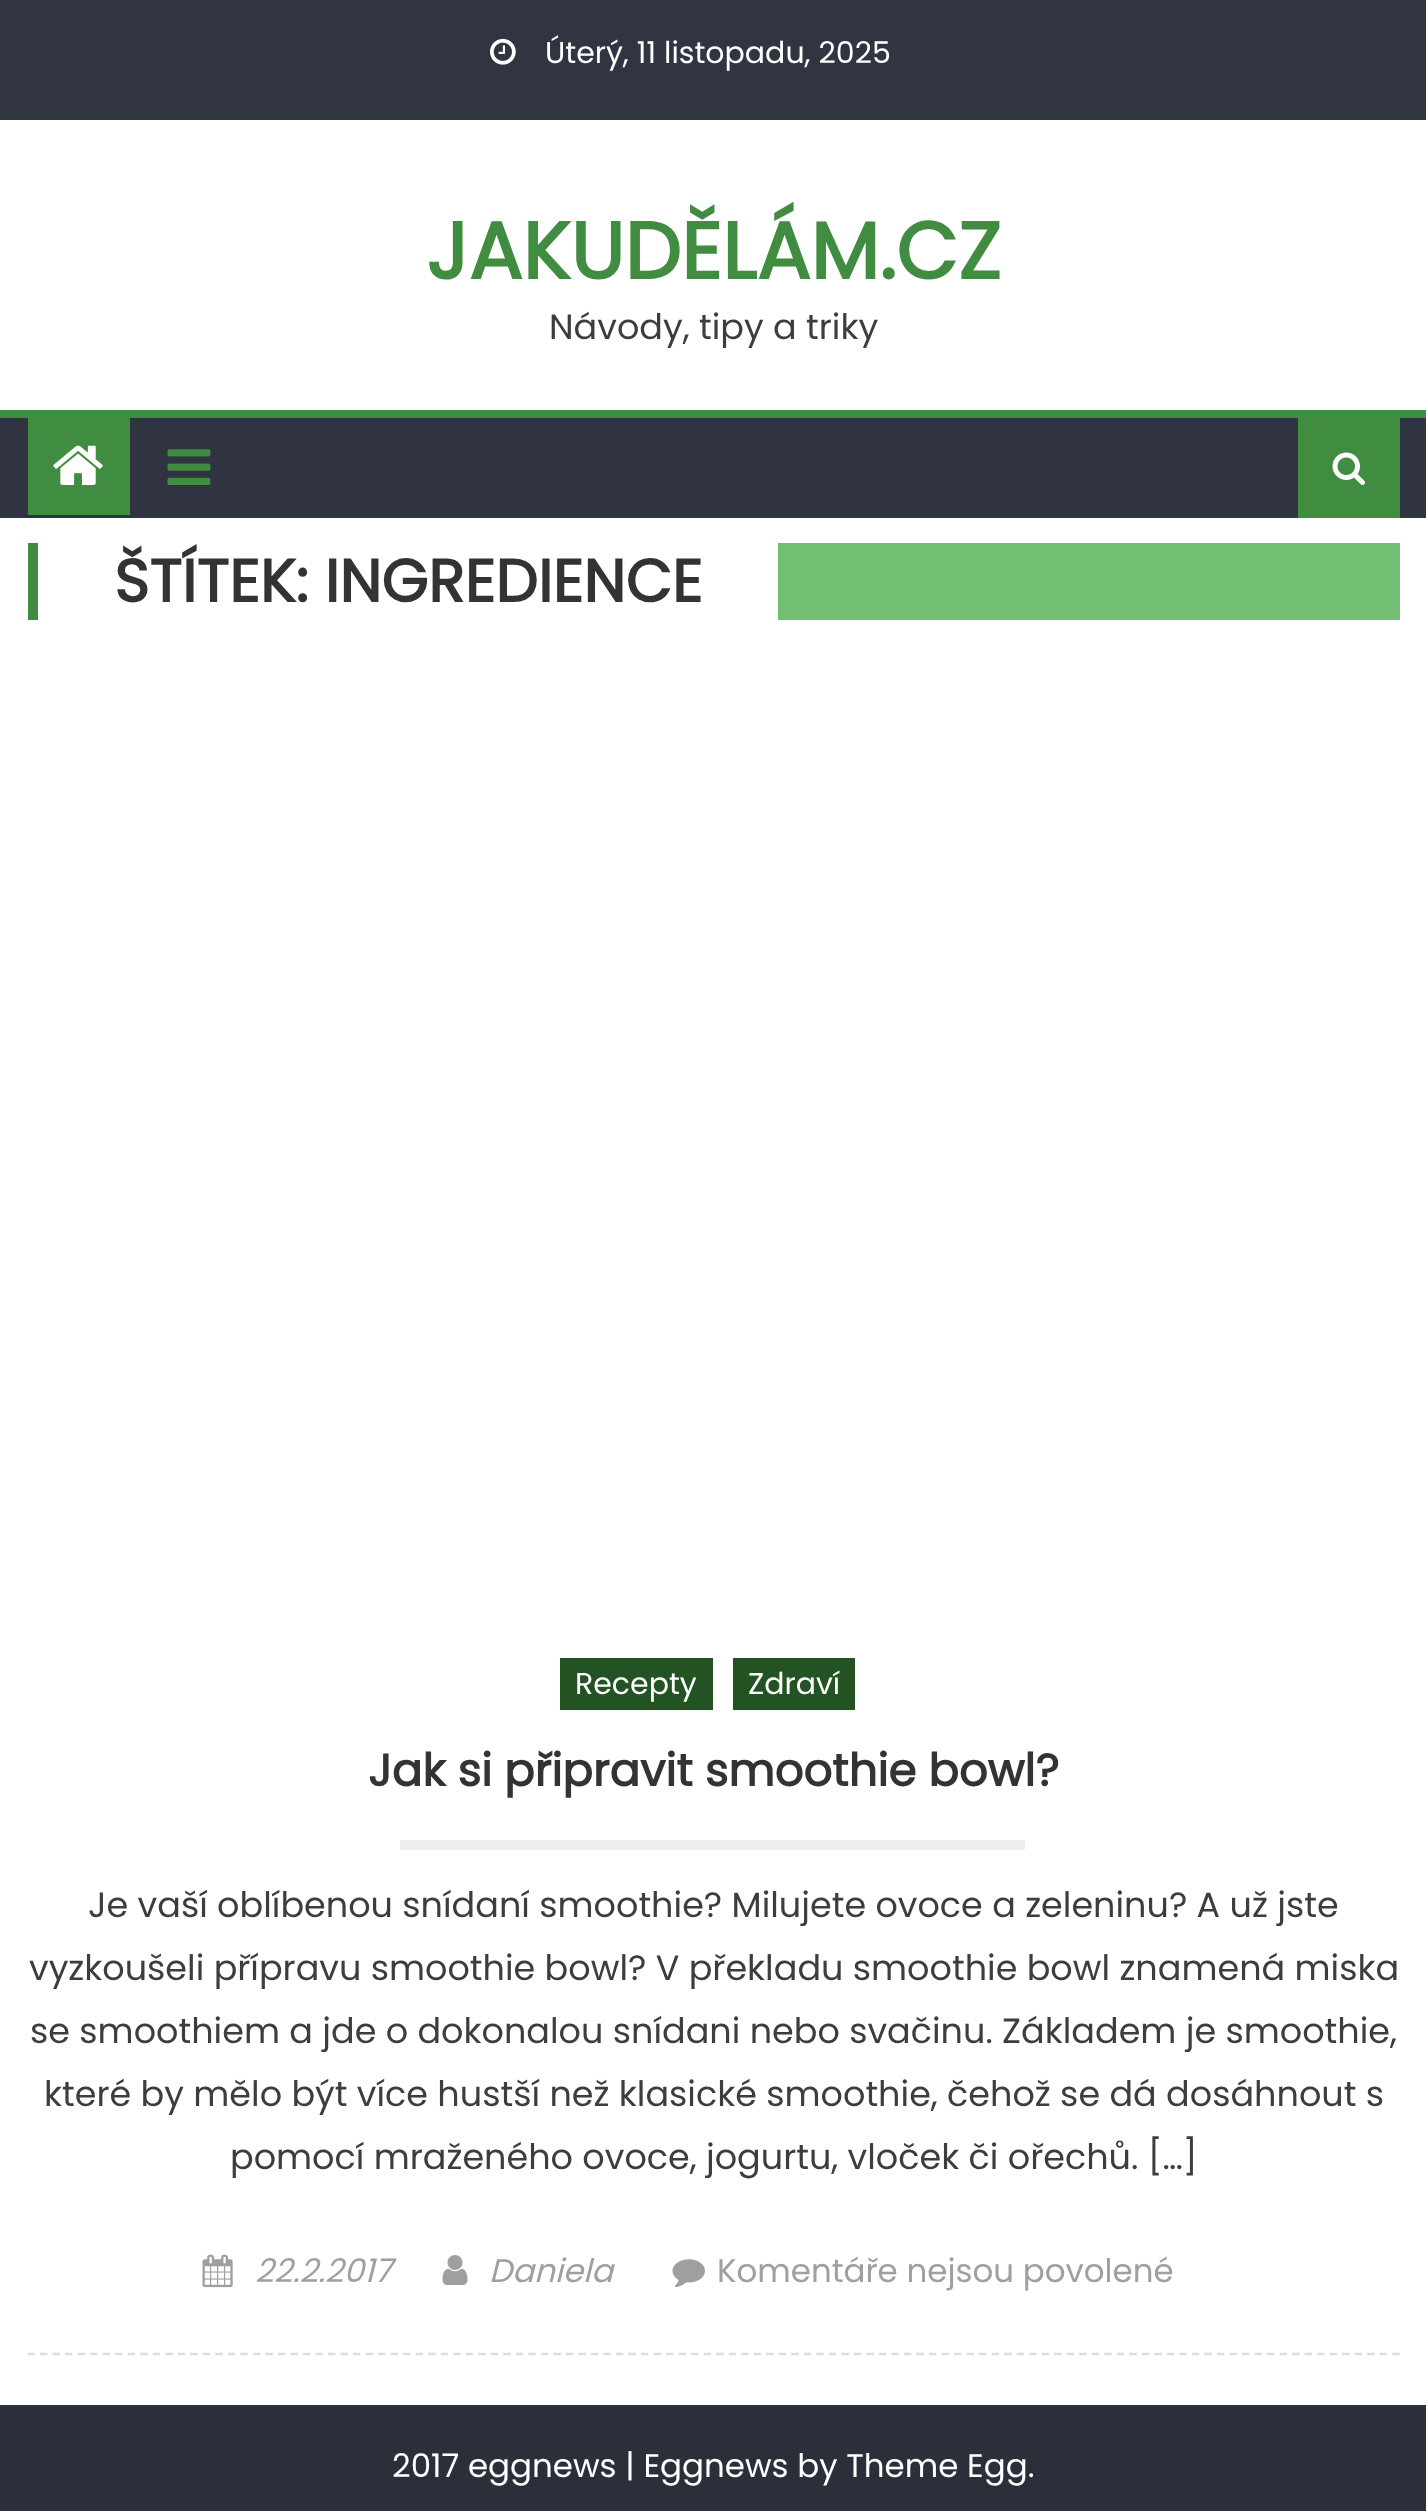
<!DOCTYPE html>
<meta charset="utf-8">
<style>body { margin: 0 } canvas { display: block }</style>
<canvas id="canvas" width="1426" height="2511"></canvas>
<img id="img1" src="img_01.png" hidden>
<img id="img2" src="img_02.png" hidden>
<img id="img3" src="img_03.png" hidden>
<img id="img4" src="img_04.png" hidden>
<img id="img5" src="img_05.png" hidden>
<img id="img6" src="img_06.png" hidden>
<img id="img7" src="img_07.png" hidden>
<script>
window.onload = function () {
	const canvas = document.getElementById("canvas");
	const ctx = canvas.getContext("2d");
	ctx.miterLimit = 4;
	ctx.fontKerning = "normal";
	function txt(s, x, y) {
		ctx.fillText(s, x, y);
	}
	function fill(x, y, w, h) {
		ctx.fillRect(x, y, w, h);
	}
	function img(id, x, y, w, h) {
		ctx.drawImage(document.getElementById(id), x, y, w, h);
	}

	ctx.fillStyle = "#FFFFFF";
	fill(0, 0, 1426, 2511);
	ctx.fillStyle = "#313541";
	fill(0, 0, 1426, 120);
	img("img1", 490, 38, 26, 27);
	ctx.fillStyle = "#303440";
	fill(0, 418, 1426, 100);
	ctx.fillStyle = "#408C40";
	fill(0, 410, 1426, 8);
	fill(28, 418, 102, 97);
	img("img2", 53, 445, 50, 40);
	img("img3", 167, 449, 44, 36);
	fill(1298, 418, 102, 100);
	img("img4", 1332, 452, 33, 33);
	ctx.fillStyle = "#73BF73";
	fill(778, 543, 622, 77);
	ctx.fillStyle = "#408C40";
	fill(28, 543, 10, 77);
	ctx.beginPath();
	ctx.moveTo(27.5, 2354);
	ctx.lineTo(1400, 2354);
	ctx.strokeStyle = "#DDDDDD";
	ctx.lineWidth = 2.5;
	ctx.setLineDash([7.5, 5.02]);
	ctx.stroke();
	ctx.fillStyle = "#235223";
	fill(560, 1658, 153, 52);
	fill(733, 1658, 122, 52);
	ctx.fillStyle = "#EEEEEE";
	fill(400, 1840, 625, 10);
	img("img5", 202, 2254, 31, 34);
	img("img6", 442, 2255, 26, 30);
	img("img7", 672, 2259, 33, 29);
	ctx.fillStyle = "#2B2F3A";
	fill(0, 2405, 1426, 106);
	ctx.font = "30px Poppins";
	ctx.fillStyle = "#FFFFFF";
	txt("Úterý, 11 listopadu, 2025", 545, 63);
	ctx.font = "bold 80px Poppins";
	ctx.fillStyle = "#408C40";
	txt("JAKUDĚLÁM.CZ", 426, 279);
	ctx.font = "35px Poppins";
	ctx.fillStyle = "#3D3D3D";
	txt("Návody, tipy a triky", 549, 339);
	ctx.font = "bold 60px Poppins";
	ctx.fillStyle = "#333333";
	txt("ŠTÍTEK: INGREDIENCE", 114, 602);
	ctx.font = "30px Poppins";
	ctx.fillStyle = "#FFFFFF";
	txt("Recepty", 575, 1694);
	txt("Zdraví", 748, 1694);
	ctx.font = "bold 45px Poppins";
	ctx.fillStyle = "#333333";
	txt("Jak si připravit smoothie bowl?", 368, 1786);
	ctx.font = "35px Poppins";
	ctx.fillStyle = "#3D3D3D";
	txt("Je vaší oblíbenou snídaní smoothie? Milujete ovoce a zeleninu? A už jste", 88, 1917);
	txt("vyzkoušeli přípravu smoothie bowl? V překladu smoothie bowl znamená miska", 29, 1980);
	txt("se smoothiem a jde o dokonalou snídani nebo svačinu. Základem je smoothie,", 30, 2043);
	txt("které by mělo být více hustší než klasické smoothie, čehož se dá dosáhnout s", 44, 2106);
	txt("pomocí mraženého ovoce, jogurtu, vloček či ořechů. […]", 230, 2169);
	ctx.font = "italic 32.5px Poppins";
	ctx.fillStyle = "#9F9F9F";
	txt("22.2.2017", 255, 2282);
	txt("Daniela", 489, 2282);
	ctx.font = "32.5px Poppins";
	txt("Komentáře nejsou povolené", 717, 2282);
	ctx.fillStyle = "#FFFFFF";
	txt("2017 eggnews | Eggnews by Theme Egg.", 392, 2477);
};
</script>
